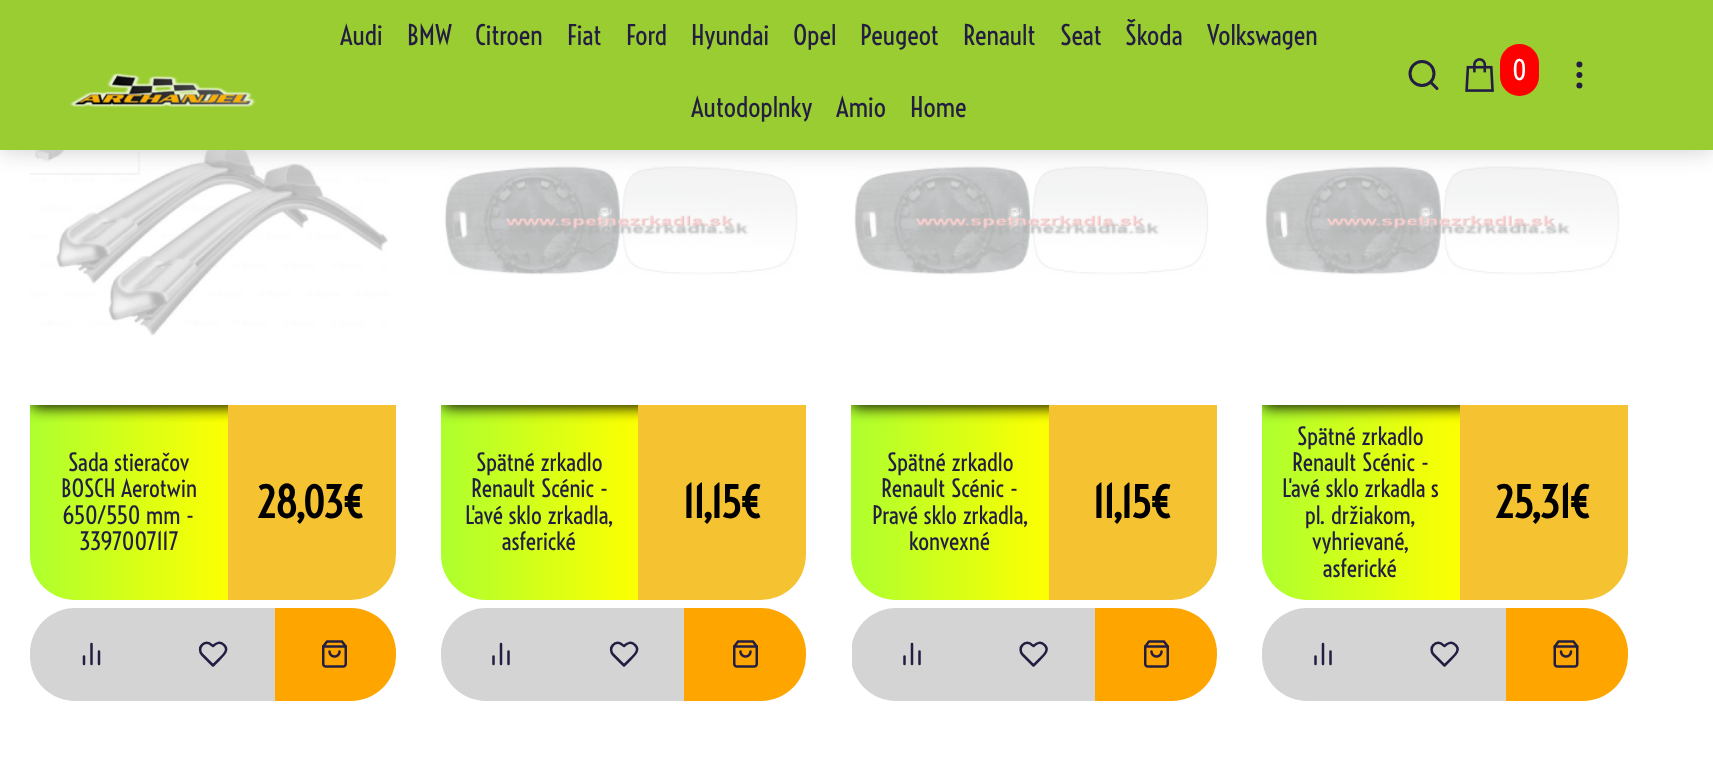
<!DOCTYPE html>
<meta charset="utf-8">
<style>body { margin: 0 } canvas { display: block }</style>
<canvas id="canvas" width="1713" height="777"></canvas>
<img id="img1" src="img_03.png" hidden>
<img id="img2" src="img_05.png" hidden>
<img id="img3" src="img_06.png" hidden>
<img id="img4" src="img_01.png" hidden>
<img id="img5" src="img_02.png" hidden>
<img id="img6" src="img_04.png" hidden>
<img id="img7" src="img_07.png" hidden>
<script>
window.onload = function () {
	const canvas = document.getElementById("canvas");
	const ctx = canvas.getContext("2d");
	ctx.miterLimit = 4;
	ctx.fontKerning = "normal";
	function txt(s, x, y) {
		ctx.fillText(s, x, y);
	}
	function fill(x, y, w, h) {
		ctx.fillRect(x, y, w, h);
	}
	function round(x, y, w, h, r) {
		ctx.beginPath();
		ctx.roundRect(x, y, w, h, r);
		ctx.fill();
	}
	function img(id, x, y, w, h) {
		ctx.drawImage(document.getElementById(id), x, y, w, h);
	}
	let gradient;

	ctx.fillStyle = "#FFFFFF";
	fill(0, 0, 1713, 777);
	gradient = ctx.createLinearGradient(30, 503, 436, 503);
	gradient.addColorStop(0, "#ADFF2F");
	gradient.addColorStop(0.5, "#FFFF00");
	gradient.addColorStop(1, "#FFFFFF");
	ctx.fillStyle = gradient;
	ctx.beginPath();
	ctx.roundRect(30, 405, 198, 195, [0, 0, 0, 45]);
	ctx.fill();
	ctx.save();
	ctx.beginPath();
	ctx.rect(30, 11, 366, 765);
	ctx.clip();
	ctx.beginPath();
	ctx.rect(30, 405, 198, 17);
	ctx.clip();
	ctx.fillStyle = "#000000";
	ctx.filter = "blur(7.5px)";
	ctx.beginPath();
	ctx.rect(32, 12, 366, 395);
	ctx.fill();
	ctx.filter = "none";
	ctx.restore();
	img("img1", 30, 150, 358, 186);
	gradient = ctx.createLinearGradient(441, 503, 844, 503);
	gradient.addColorStop(0, "#ADFF2F");
	gradient.addColorStop(0.5, "#FFFF00");
	gradient.addColorStop(1, "#FFFFFF");
	ctx.fillStyle = gradient;
	ctx.beginPath();
	ctx.roundRect(441, 405, 197, 195, [0, 0, 0, 45]);
	ctx.fill();
	ctx.save();
	ctx.beginPath();
	ctx.rect(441, 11, 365, 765);
	ctx.clip();
	ctx.beginPath();
	ctx.moveTo(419, 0);
	ctx.lineTo(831, 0);
	ctx.lineTo(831, 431);
	ctx.lineTo(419, 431);
	ctx.closePath();
	ctx.moveTo(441, 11);
	ctx.lineTo(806, 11);
	ctx.lineTo(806, 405);
	ctx.lineTo(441, 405);
	ctx.closePath();
	ctx.clip("evenodd");
	ctx.fillStyle = "#000000";
	ctx.filter = "blur(7.5px)";
	ctx.beginPath();
	ctx.rect(443, 12, 364, 395);
	ctx.fill();
	ctx.filter = "none";
	ctx.restore();
	img("img2", 444, 163, 362, 117);
	gradient = ctx.createLinearGradient(851, 503, 1256, 503);
	gradient.addColorStop(0, "#ADFF2F");
	gradient.addColorStop(0.5, "#FFFF00");
	gradient.addColorStop(1, "#FFFFFF");
	ctx.fillStyle = gradient;
	ctx.beginPath();
	ctx.roundRect(851, 405, 198, 195, [0, 0, 0, 45]);
	ctx.fill();
	ctx.save();
	ctx.beginPath();
	ctx.rect(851, 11, 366, 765);
	ctx.clip();
	ctx.beginPath();
	ctx.moveTo(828, 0);
	ctx.lineTo(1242, 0);
	ctx.lineTo(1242, 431);
	ctx.lineTo(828, 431);
	ctx.closePath();
	ctx.moveTo(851, 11);
	ctx.lineTo(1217, 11);
	ctx.lineTo(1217, 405);
	ctx.lineTo(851, 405);
	ctx.closePath();
	ctx.clip("evenodd");
	ctx.fillStyle = "#000000";
	ctx.filter = "blur(7.5px)";
	ctx.beginPath();
	ctx.rect(852, 12, 366, 395);
	ctx.fill();
	ctx.filter = "none";
	ctx.restore();
	img("img3", 854, 163, 363, 117);
	gradient = ctx.createLinearGradient(1262, 503, 1667, 503);
	gradient.addColorStop(0, "#ADFF2F");
	gradient.addColorStop(0.5, "#FFFF00");
	gradient.addColorStop(1, "#FFFFFF");
	ctx.fillStyle = gradient;
	ctx.beginPath();
	ctx.roundRect(1262, 405, 198, 195, [0, 0, 0, 45]);
	ctx.fill();
	ctx.save();
	ctx.beginPath();
	ctx.rect(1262, 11, 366, 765);
	ctx.clip();
	ctx.beginPath();
	ctx.moveTo(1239, 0);
	ctx.lineTo(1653, 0);
	ctx.lineTo(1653, 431);
	ctx.lineTo(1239, 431);
	ctx.closePath();
	ctx.moveTo(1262, 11);
	ctx.lineTo(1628, 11);
	ctx.lineTo(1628, 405);
	ctx.lineTo(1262, 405);
	ctx.closePath();
	ctx.clip("evenodd");
	ctx.fillStyle = "#000000";
	ctx.filter = "blur(7.5px)";
	ctx.beginPath();
	ctx.rect(1263, 12, 366, 395);
	ctx.fill();
	ctx.filter = "none";
	ctx.restore();
	img("img3", 1265, 163, 363, 117);
	ctx.fillStyle = "#D3D3D3";
	ctx.filter = "blur(10.5px)";
	ctx.beginPath();
	ctx.rect(0, 2, 1713, 150);
	ctx.fill();
	ctx.filter = "none";
	ctx.fillStyle = "#9ACD32";
	fill(0, 0, 1713, 150);
	ctx.beginPath();
	ctx.arc(1422, 73.5, 12, 0, Math.PI * 2);
	ctx.strokeStyle = "#231E41";
	ctx.lineWidth = 3;
	ctx.stroke();
	ctx.beginPath();
	ctx.moveTo(1437, 88.5);
	ctx.lineTo(1430.5, 82);
	ctx.lineCap = "round";
	ctx.lineJoin = "round";
	ctx.stroke();
	img("img4", 1465, 58, 29, 34);
	ctx.fillStyle = "#FF0000";
	round(1500, 44, 39, 52, 19.5);
	ctx.beginPath();
	ctx.arc(1579.4, 75, 1.5, 0, Math.PI * 2);
	ctx.stroke();
	ctx.beginPath();
	ctx.arc(1579.4, 64.5, 1.5, 0, Math.PI * 2);
	ctx.stroke();
	ctx.beginPath();
	ctx.arc(1579.4, 85.5, 1.5, 0, Math.PI * 2);
	ctx.stroke();
	img("img5", 69, 73, 187, 35);
	ctx.fillStyle = "#F5C332";
	ctx.beginPath();
	ctx.roundRect(228, 405, 168, 195, [0, 0, 45, 0]);
	ctx.fill();
	ctx.fillStyle = "#D4D4D4";
	ctx.beginPath();
	ctx.roundRect(30, 608, 122, 93, [45, 0, 0, 45]);
	ctx.fill();
	ctx.beginPath();
	ctx.moveTo(99, 664);
	ctx.lineTo(99, 651.5);
	ctx.moveTo(91.5, 664);
	ctx.lineTo(91.5, 644);
	ctx.moveTo(84, 664);
	ctx.lineTo(84, 656.5);
	ctx.lineWidth = 2.5;
	ctx.stroke();
	fill(152, 608, 123, 93);
	ctx.beginPath();
	ctx.moveTo(224, 645);
	ctx.bezierCurveTo(220.5, 641, 216, 643, 213, 646);
	ctx.lineTo(211.5, 645);
	ctx.bezierCurveTo(209, 642, 204.5, 642, 202, 645);
	ctx.bezierCurveTo(199.5, 647.5, 199.5, 652, 202, 654.5);
	ctx.lineTo(213, 665.5);
	ctx.lineTo(219.5, 659);
	ctx.bezierCurveTo(223, 655.5, 229.5, 650, 224, 645);
	ctx.closePath();
	ctx.stroke();
	ctx.fillStyle = "#FFA500";
	ctx.beginPath();
	ctx.roundRect(275, 608, 121, 93, [0, 45, 45, 0]);
	ctx.fill();
	img("img6", 322, 640, 25, 28);
	ctx.fillStyle = "#F5C332";
	ctx.beginPath();
	ctx.roundRect(638, 405, 168, 195, [0, 0, 45, 0]);
	ctx.fill();
	ctx.fillStyle = "#D4D4D4";
	ctx.beginPath();
	ctx.roundRect(441, 608, 122, 93, [45, 0, 0, 45]);
	ctx.fill();
	ctx.beginPath();
	ctx.moveTo(508.5, 664);
	ctx.lineTo(508.5, 651.5);
	ctx.moveTo(501, 664);
	ctx.lineTo(501, 644);
	ctx.moveTo(493.5, 664);
	ctx.lineTo(493.5, 656.5);
	ctx.stroke();
	fill(563, 608, 121, 93);
	ctx.beginPath();
	ctx.moveTo(635, 645);
	ctx.bezierCurveTo(631.5, 641, 627, 643, 624, 646);
	ctx.lineTo(622.5, 645);
	ctx.bezierCurveTo(620, 642, 615.5, 642, 613, 645);
	ctx.bezierCurveTo(610.5, 647.5, 610.5, 652, 613, 654.5);
	ctx.lineTo(624, 665.5);
	ctx.lineTo(630.5, 659);
	ctx.bezierCurveTo(634, 655.5, 640.5, 650, 635, 645);
	ctx.closePath();
	ctx.stroke();
	ctx.fillStyle = "#FFA500";
	ctx.beginPath();
	ctx.roundRect(684, 608, 122, 93, [0, 45, 45, 0]);
	ctx.fill();
	img("img6", 733, 640, 25, 28);
	ctx.fillStyle = "#F5C332";
	ctx.beginPath();
	ctx.roundRect(1049, 405, 168, 195, [0, 0, 45, 0]);
	ctx.fill();
	ctx.save();
	ctx.beginPath();
	ctx.roundRect(851, 608, 366, 93, 45);
	ctx.clip();
	ctx.fillStyle = "#D4D4D4";
	fill(852, 608, 122, 93);
	ctx.restore();
	ctx.beginPath();
	ctx.moveTo(919.5, 664);
	ctx.lineTo(919.5, 651.5);
	ctx.moveTo(912, 664);
	ctx.lineTo(912, 644);
	ctx.moveTo(904.5, 664);
	ctx.lineTo(904.5, 656.5);
	ctx.stroke();
	ctx.fillStyle = "#D4D4D4";
	fill(974, 608, 121, 93);
	ctx.beginPath();
	ctx.moveTo(1044.5, 645);
	ctx.bezierCurveTo(1041, 641, 1036.5, 643, 1033.5, 646);
	ctx.lineTo(1032, 645);
	ctx.bezierCurveTo(1029.5, 642, 1025, 642, 1022.5, 645);
	ctx.bezierCurveTo(1020, 647.5, 1020, 652, 1022.5, 654.5);
	ctx.lineTo(1033.5, 665.5);
	ctx.lineTo(1040, 659);
	ctx.bezierCurveTo(1043.5, 655.5, 1050, 650, 1044.5, 645);
	ctx.closePath();
	ctx.stroke();
	ctx.fillStyle = "#FFA500";
	ctx.beginPath();
	ctx.roundRect(1095, 608, 122, 93, [0, 45, 45, 0]);
	ctx.fill();
	img("img6", 1144, 640, 25, 28);
	ctx.fillStyle = "#F5C332";
	ctx.beginPath();
	ctx.roundRect(1460, 405, 168, 195, [0, 0, 45, 0]);
	ctx.fill();
	ctx.fillStyle = "#D4D4D4";
	ctx.beginPath();
	ctx.roundRect(1262, 608, 121, 93, [45, 0, 0, 45]);
	ctx.fill();
	ctx.beginPath();
	ctx.moveTo(1330.5, 664);
	ctx.lineTo(1330.5, 651.5);
	ctx.moveTo(1323, 664);
	ctx.lineTo(1323, 644);
	ctx.moveTo(1315.5, 664);
	ctx.lineTo(1315.5, 656.5);
	ctx.stroke();
	fill(1383, 608, 123, 93);
	ctx.beginPath();
	ctx.moveTo(1455.5, 645);
	ctx.bezierCurveTo(1452, 641, 1447.5, 643, 1444.5, 646);
	ctx.lineTo(1443, 645);
	ctx.bezierCurveTo(1440.5, 642, 1436, 642, 1433.5, 645);
	ctx.bezierCurveTo(1431, 647.5, 1431, 652, 1433.5, 654.5);
	ctx.lineTo(1444.5, 665.5);
	ctx.lineTo(1451, 659);
	ctx.bezierCurveTo(1454.5, 655.5, 1461, 650, 1455.5, 645);
	ctx.closePath();
	ctx.stroke();
	ctx.fillStyle = "#FFA500";
	ctx.beginPath();
	ctx.roundRect(1506, 608, 122, 93, [0, 45, 45, 0]);
	ctx.fill();
	img("img7", 1553, 640, 26, 28);
	ctx.font = "27px Voltaire";
	ctx.fillStyle = "#231E41";
	txt("Audi", 340, 45);
	txt("BMW", 407, 45);
	txt("Citroen", 475, 45);
	txt("Fiat", 567, 45);
	txt("Ford", 626, 45);
	txt("Hyundai", 691, 45);
	txt("Opel", 793, 45);
	txt("Peugeot", 860, 45);
	txt("Renault", 963, 45);
	txt("Seat", 1060, 45);
	txt("Škoda", 1125, 45);
	txt("Volkswagen", 1207, 45);
	txt("Autodoplnky", 691, 117);
	txt("Amio", 836, 117);
	txt("Home", 910, 117);
	ctx.fillStyle = "#FFFFFF";
	txt("0", 1512, 80);
	ctx.font = "24px Voltaire";
	ctx.fillStyle = "#231E41";
	txt("Sada stieračov", 68, 471);
	txt("BOSCH Aerotwin", 61, 497);
	txt("650/550 mm -", 62, 524);
	txt("3397007117", 79, 550);
	ctx.font = "bold 42px Voltaire";
	ctx.fillStyle = "#000000";
	txt("28,03€", 257, 518);
	ctx.font = "24px Voltaire";
	ctx.fillStyle = "#231E41";
	txt("Spätné zrkadlo", 476, 471);
	txt("Renault Scénic -", 471, 497);
	txt("Ľavé sklo zrkadla,", 465, 524);
	txt("asferické", 502, 550);
	ctx.font = "bold 42px Voltaire";
	ctx.fillStyle = "#000000";
	txt("11,15€", 682, 518);
	ctx.font = "24px Voltaire";
	ctx.fillStyle = "#231E41";
	txt("Spätné zrkadlo", 887, 471);
	txt("Renault Scénic -", 881, 497);
	txt("Pravé sklo zrkadla,", 872, 524);
	txt("konvexné", 909, 550);
	ctx.font = "bold 42px Voltaire";
	ctx.fillStyle = "#000000";
	txt("11,15€", 1092, 518);
	ctx.font = "24px Voltaire";
	ctx.fillStyle = "#231E41";
	txt("Spätné zrkadlo", 1297, 445);
	txt("Renault Scénic -", 1292, 471);
	txt("Ľavé sklo zrkadla s", 1282, 497);
	txt("pl. držiakom,", 1305, 524);
	txt("vyhrievané,", 1312, 550);
	txt("asferické", 1323, 577);
	ctx.font = "bold 42px Voltaire";
	ctx.fillStyle = "#000000";
	txt("25,31€", 1495, 518);
};
</script>
